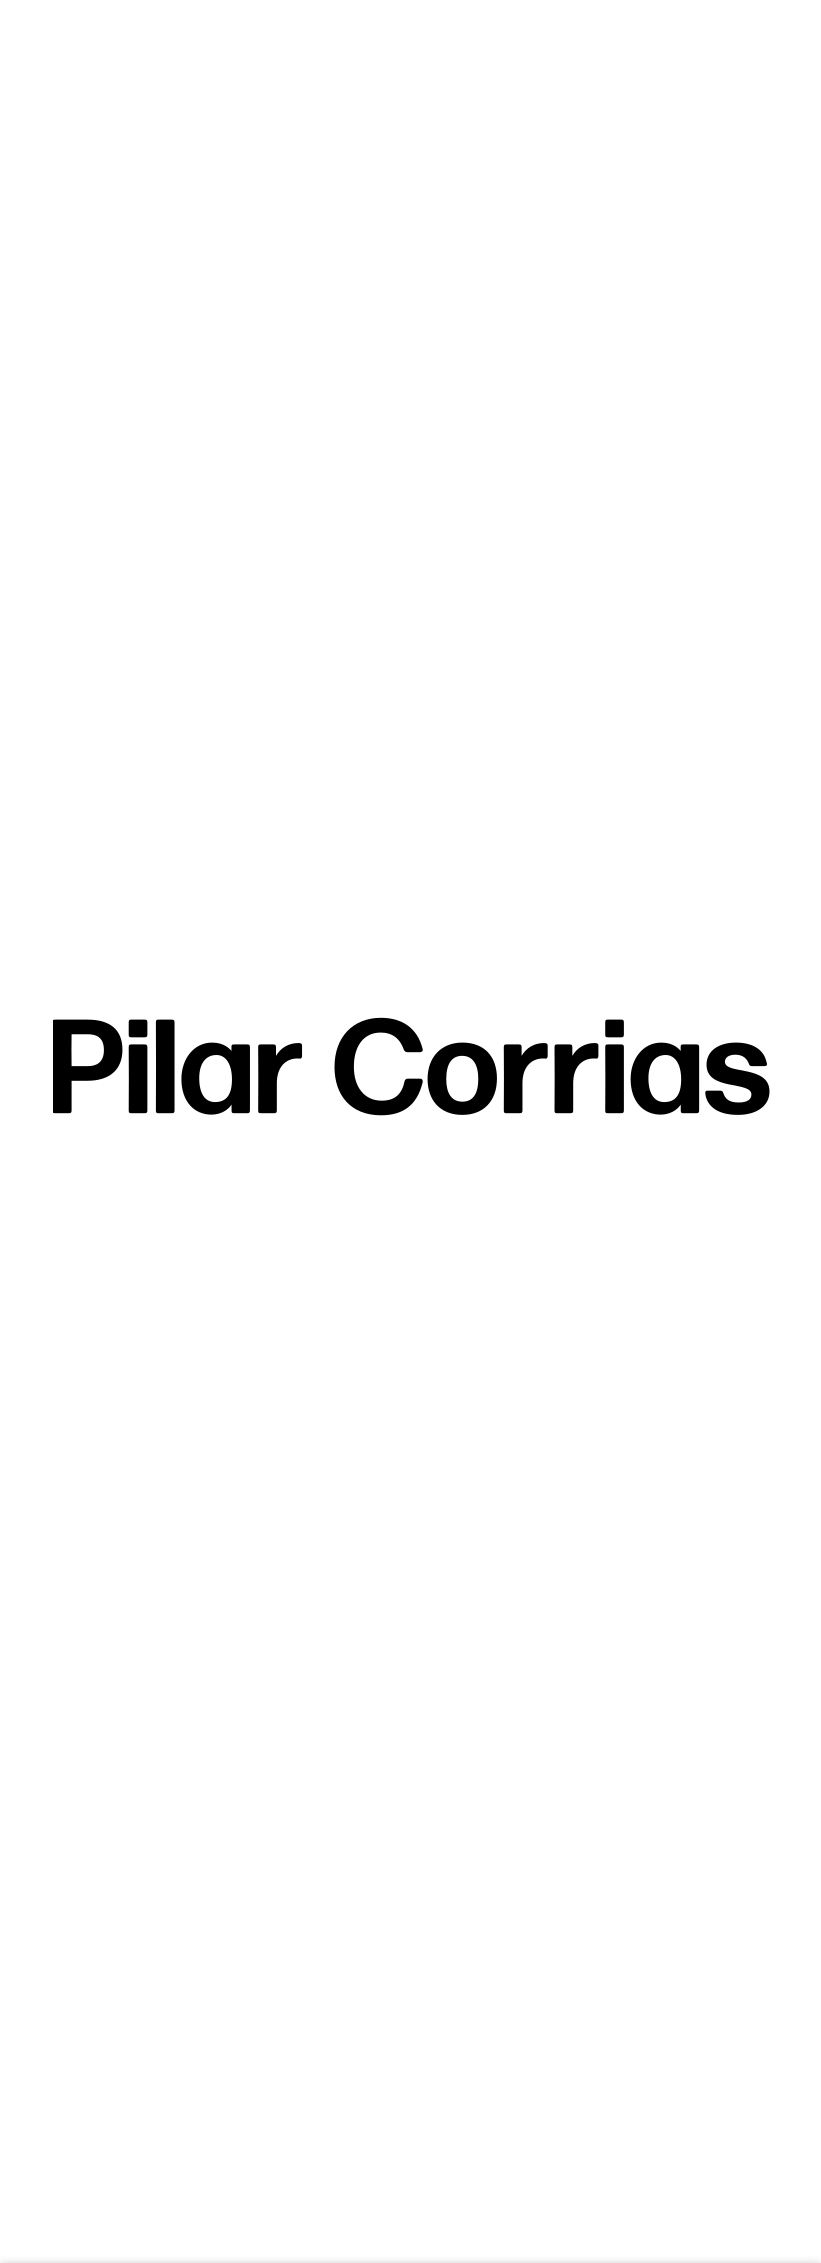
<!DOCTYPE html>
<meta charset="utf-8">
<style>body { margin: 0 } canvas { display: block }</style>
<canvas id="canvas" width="821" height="2263"></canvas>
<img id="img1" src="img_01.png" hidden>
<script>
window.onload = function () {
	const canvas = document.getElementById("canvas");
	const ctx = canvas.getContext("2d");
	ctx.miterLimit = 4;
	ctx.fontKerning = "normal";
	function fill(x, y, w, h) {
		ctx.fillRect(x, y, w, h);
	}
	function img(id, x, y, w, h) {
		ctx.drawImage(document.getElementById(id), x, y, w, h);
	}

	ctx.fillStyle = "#FFFFFF";
	fill(0, 0, 821, 2263);
	img("img1", 53, 1017, 717, 99);
	ctx.fillStyle = "rgba(0, 0, 0, 0.23)";
	ctx.filter = "blur(4px)";
	ctx.beginPath();
	ctx.rect(0, 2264, 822, 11);
	ctx.fill();
	ctx.filter = "none";
};
</script>
